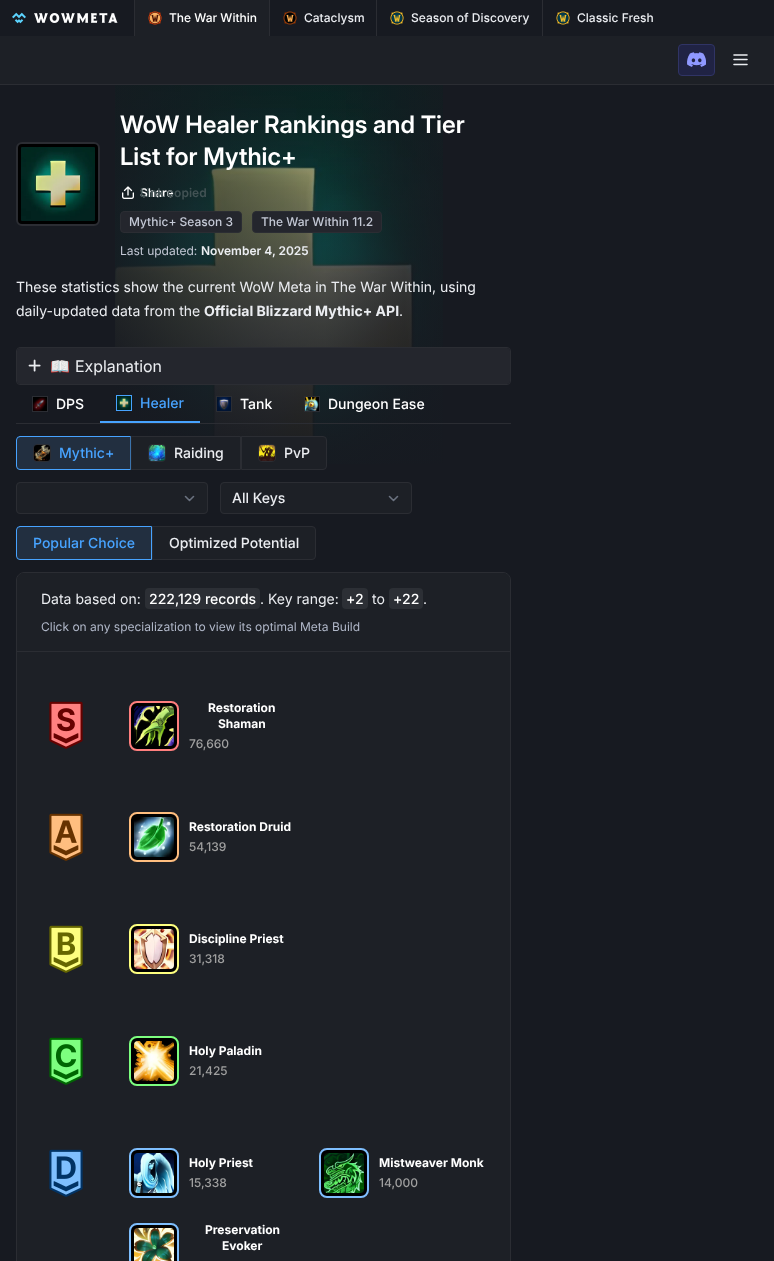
<!DOCTYPE html>
<meta charset="utf-8">
<style>body { margin: 0 } canvas { display: block }</style>
<canvas id="canvas" width="774" height="1261"></canvas>
<img id="img1" src="img_01.png" hidden>
<img id="img2" src="img_02.png" hidden>
<img id="img3" src="img_03.png" hidden>
<img id="img4" src="img_04.png" hidden>
<img id="img5" src="img_05.png" hidden>
<img id="img6" src="img_06.png" hidden>
<img id="img7" src="img_07.png" hidden>
<img id="img8" src="img_08.png" hidden>
<img id="img9" src="img_09.png" hidden>
<img id="img10" src="img_10.png" hidden>
<img id="img11" src="img_11.png" hidden>
<img id="img12" src="img_12.png" hidden>
<img id="img13" src="img_13.png" hidden>
<img id="img14" src="img_14.png" hidden>
<img id="img15" src="img_15.png" hidden>
<img id="img16" src="img_16.png" hidden>
<img id="img17" src="img_17.png" hidden>
<img id="img18" src="img_18.png" hidden>
<img id="img19" src="img_19.png" hidden>
<img id="img20" src="img_20.png" hidden>
<img id="img21" src="img_21.png" hidden>
<img id="img22" src="img_22.png" hidden>
<img id="img23" src="img_23.png" hidden>
<img id="img24" src="img_24.png" hidden>
<img id="img25" src="img_25.png" hidden>
<img id="img26" src="img_26.png" hidden>
<img id="img27" src="img_27.png" hidden>
<img id="img28" src="img_28.png" hidden>
<img id="img29" src="img_29.png" hidden>
<script>
window.onload = function () {
	const canvas = document.getElementById("canvas");
	const ctx = canvas.getContext("2d");
	ctx.miterLimit = 4;
	ctx.fontKerning = "normal";
	function txt(s, x, y) {
		ctx.fillText(s, x, y);
	}
	function fill(x, y, w, h) {
		ctx.fillRect(x, y, w, h);
	}
	function round(x, y, w, h, r) {
		ctx.beginPath();
		ctx.roundRect(x, y, w, h, r);
		ctx.fill();
	}
	function img(id, x, y, w, h) {
		ctx.drawImage(document.getElementById(id), x, y, w, h);
	}

	ctx.fillStyle = "#171A21";
	fill(0, 0, 774, 1261);
	ctx.fillStyle = "#1D2026";
	fill(0, 36, 774, 48);
	ctx.fillStyle = "#2B2D33";
	fill(0, 84, 774, 1);
	img("img1", 12, 12, 14, 12);
	img("img2", 34, 13, 84, 10);
	ctx.fillStyle = "#1D2026";
	fill(135, 0, 134, 36);
	ctx.fillStyle = "#2B2D33";
	fill(134, 0, 1, 36);
	img("img3", 148, 11, 14, 14);
	fill(269, 0, 1, 36);
	img("img4", 283, 11, 14, 14);
	fill(376, 0, 1, 36);
	img("img5", 390, 11, 14, 14);
	fill(542, 0, 1, 36);
	img("img5", 556, 11, 14, 14);
	ctx.fillStyle = "#202344";
	ctx.beginPath();
	ctx.roundRect(678.5, 44.5, 36, 31, 3.5);
	ctx.fill();
	ctx.strokeStyle = "#303465";
	ctx.stroke();
	img("img6", 687, 52, 19, 15);
	ctx.beginPath();
	ctx.moveTo(734, 55);
	ctx.lineTo(747, 55);
	ctx.moveTo(734, 59.5);
	ctx.lineTo(747, 59.5);
	ctx.moveTo(734, 64.5);
	ctx.lineTo(747, 64.5);
	ctx.strokeStyle = "#EBEDF1";
	ctx.lineWidth = 1.6;
	ctx.lineCap = "round";
	ctx.lineJoin = "round";
	ctx.stroke();
	img("img7", 115, 85, 328, 379);
	ctx.fillStyle = "#000000";
	ctx.beginPath();
	ctx.roundRect(17, 143, 82, 82, 5);
	ctx.fill();
	ctx.strokeStyle = "#2B2D33";
	ctx.lineWidth = 2;
	ctx.lineJoin = "miter";
	ctx.stroke();
	img("img8", 21, 147, 74, 74);
	img("img9", 122, 186, 12, 13);
	ctx.fillStyle = "#24262D";
	ctx.beginPath();
	ctx.roundRect(120.5, 211.5, 121, 21, 3.5);
	ctx.fill();
	ctx.lineWidth = 1;
	ctx.stroke();
	ctx.beginPath();
	ctx.roundRect(252.5, 211.5, 129, 21, 3.5);
	ctx.fill();
	ctx.stroke();
	ctx.beginPath();
	ctx.roundRect(16.5, 347.5, 494, 37, 3.5);
	ctx.stroke();
	round(17, 348, 493, 36, 3);
	img("img10", 28, 359, 13, 13);
	ctx.fillStyle = "#2B2D33";
	fill(16, 423, 495, 1);
	ctx.strokeRect(32.5, 396.5, 15, 15);
	img("img11", 33, 397, 14, 14);
	ctx.fillStyle = "#47A3FF";
	fill(100, 421, 100, 2);
	ctx.strokeStyle = "#47A3FF";
	ctx.strokeRect(116.5, 395.5, 15, 15);
	img("img12", 117, 396, 14, 14);
	ctx.strokeStyle = "#2B2D33";
	ctx.strokeRect(216.5, 396.5, 15, 15);
	img("img13", 217, 397, 14, 14);
	ctx.strokeRect(304.5, 396.5, 15, 15);
	img("img14", 305, 397, 14, 14);
	ctx.fillStyle = "#222F40";
	ctx.beginPath();
	ctx.roundRect(16.5, 436.5, 114, 33, [3.5, 0, 0, 3.5]);
	ctx.fill();
	ctx.strokeStyle = "#47A3FF";
	ctx.stroke();
	ctx.beginPath();
	ctx.roundRect(33.5, 444.5, 17, 17, 3.5);
	ctx.strokeStyle = "#2B2D33";
	ctx.stroke();
	img("img15", 34, 445, 16, 16);
	ctx.fillStyle = "#1D2026";
	ctx.beginPath();
	ctx.rect(131.5, 436.5, 109, 33);
	ctx.fill();
	ctx.stroke();
	ctx.beginPath();
	ctx.roundRect(148.5, 444.5, 17, 17, 3.5);
	ctx.stroke();
	img("img16", 149, 445, 16, 16);
	ctx.beginPath();
	ctx.roundRect(241.5, 436.5, 85, 33, [0, 3.5, 3.5, 0]);
	ctx.fill();
	ctx.stroke();
	ctx.beginPath();
	ctx.roundRect(258.5, 444.5, 17, 17, 3.5);
	ctx.stroke();
	img("img17", 259, 445, 16, 16);
	round(16, 482, 192, 32, 4);
	ctx.beginPath();
	ctx.moveTo(185.5, 496.5);
	ctx.lineTo(189.5, 500.5);
	ctx.lineTo(193.5, 496.5);
	ctx.strokeStyle = "#6B7280";
	ctx.lineWidth = 1.6;
	ctx.lineJoin = "round";
	ctx.stroke();
	ctx.beginPath();
	ctx.roundRect(16.5, 482.5, 191, 31, 3.5);
	ctx.strokeStyle = "#2B2D33";
	ctx.lineWidth = 1;
	ctx.lineJoin = "miter";
	ctx.stroke();
	round(220, 482, 192, 32, 4);
	ctx.beginPath();
	ctx.moveTo(389.5, 496.5);
	ctx.lineTo(393.5, 500.5);
	ctx.lineTo(397.5, 496.5);
	ctx.strokeStyle = "#6B7280";
	ctx.lineWidth = 1.6;
	ctx.lineJoin = "round";
	ctx.stroke();
	ctx.beginPath();
	ctx.roundRect(220.5, 482.5, 191, 31, 3.5);
	ctx.strokeStyle = "#2B2D33";
	ctx.lineWidth = 1;
	ctx.lineJoin = "miter";
	ctx.stroke();
	ctx.fillStyle = "#222F40";
	ctx.beginPath();
	ctx.roundRect(16.5, 526.5, 135, 33, [3.5, 0, 0, 3.5]);
	ctx.fill();
	ctx.strokeStyle = "#47A3FF";
	ctx.stroke();
	ctx.fillStyle = "#1D2026";
	ctx.beginPath();
	ctx.roundRect(152.5, 526.5, 163, 33, [0, 3.5, 3.5, 0]);
	ctx.fill();
	ctx.strokeStyle = "#2B2D33";
	ctx.stroke();
	ctx.beginPath();
	ctx.roundRect(16.5, 572.5, 494, 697, 7.5);
	ctx.fill();
	ctx.stroke();
	ctx.beginPath();
	ctx.roundRect(17, 573, 493, 78, [7, 7, 0, 0]);
	ctx.fill();
	ctx.fillStyle = "#2B2D33";
	fill(17, 651, 493, 1);
	ctx.fillStyle = "#2C2F35";
	ctx.beginPath();
	ctx.roundRect(145, 588, 56, 21, [4, 0, 0, 4]);
	ctx.fill();
	ctx.beginPath();
	ctx.roundRect(201, 588, 59, 21, [0, 4, 4, 0]);
	ctx.fill();
	ctx.beginPath();
	ctx.roundRect(342, 588, 13, 21, [4, 0, 0, 4]);
	ctx.fill();
	ctx.beginPath();
	ctx.roundRect(355, 588, 13, 21, [0, 4, 4, 0]);
	ctx.fill();
	ctx.beginPath();
	ctx.roundRect(389, 588, 13, 21, [4, 0, 0, 4]);
	ctx.fill();
	ctx.beginPath();
	ctx.roundRect(402, 588, 21, 21, [0, 4, 4, 0]);
	ctx.fill();
	img("img18", 49, 701, 34, 48);
	ctx.fillStyle = "#000000";
	ctx.beginPath();
	ctx.roundRect(130, 702, 48, 48, 7);
	ctx.fill();
	ctx.strokeStyle = "#FF7F7E";
	ctx.lineWidth = 2;
	ctx.stroke();
	img("img19", 134, 706, 40, 40);
	img("img20", 49, 813, 34, 48);
	ctx.beginPath();
	ctx.roundRect(130, 813, 48, 48, 7);
	ctx.fill();
	ctx.strokeStyle = "#FFBE7F";
	ctx.stroke();
	img("img21", 134, 817, 40, 40);
	img("img22", 49, 925, 34, 48);
	ctx.beginPath();
	ctx.roundRect(130, 925, 48, 48, 7);
	ctx.fill();
	ctx.strokeStyle = "#FEFF7F";
	ctx.stroke();
	img("img23", 134, 929, 40, 40);
	img("img24", 49, 1037, 34, 48);
	ctx.beginPath();
	ctx.roundRect(130, 1037, 48, 48, 7);
	ctx.fill();
	ctx.strokeStyle = "#7DFF7F";
	ctx.stroke();
	img("img25", 134, 1041, 40, 40);
	img("img26", 49, 1149, 34, 48);
	ctx.beginPath();
	ctx.roundRect(130, 1149, 48, 48, 7);
	ctx.fill();
	ctx.strokeStyle = "#7FBFFE";
	ctx.stroke();
	img("img27", 134, 1153, 40, 40);
	ctx.beginPath();
	ctx.roundRect(320, 1149, 48, 48, 7);
	ctx.fill();
	ctx.stroke();
	img("img28", 324, 1153, 40, 40);
	ctx.beginPath();
	ctx.roundRect(130, 1224, 48, 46, 7);
	ctx.fill();
	ctx.stroke();
	img("img29", 134, 1228, 40, 33);
	ctx.font = "500 12px Inter";
	ctx.fillStyle = "#FFFFFF";
	txt("The War Within", 169, 22);
	ctx.fillStyle = "#EBEDF1";
	txt("Cataclysm", 304, 22);
	txt("Season of Discovery", 411, 22);
	txt("Classic Fresh", 577, 22);
	ctx.font = "600 24px Inter";
	ctx.fillStyle = "#FFFFFF";
	txt("WoW Healer Rankings and Tier", 120, 133);
	txt("List for Mythic+", 120, 165);
	ctx.font = "600 12px 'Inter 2'";
	txt("Share", 140, 197);
	ctx.fillStyle = "#425254";
	txt("Link copied", 140, 197);
	ctx.font = "500 12px Inter";
	ctx.fillStyle = "#C4C9D6";
	txt("Mythic+ Season 3", 129, 226);
	txt("The War Within 11.2", 261, 226);
	ctx.font = "12px Inter";
	txt("Last updated:", 120, 255);
	ctx.font = "600 12px 'Inter 2'";
	ctx.fillStyle = "#EBEDF1";
	txt("November 4, 2025", 201, 255);
	ctx.font = "14px Inter";
	txt("These statistics show the current WoW Meta in The War Within, using", 16, 292);
	txt("daily-updated data from the", 16, 316);
	ctx.font = "bold 14px Inter";
	txt("Official Blizzard Mythic+ API", 204, 316);
	ctx.font = "14px Inter";
	txt(".", 399, 316);
	ctx.font = "16px Noto Color Emoji";
	txt("📖", 50, 372);
	ctx.font = "16px 'Inter 2'";
	txt("Explanation", 75, 372);
	ctx.font = "500 14px Inter";
	ctx.fillStyle = "#FFFFFF";
	txt("DPS", 56, 409);
	ctx.fillStyle = "#47A3FF";
	txt("Healer", 140, 408);
	ctx.fillStyle = "#FFFFFF";
	txt("Tank", 240, 409);
	txt("Dungeon Ease", 328, 409);
	ctx.fillStyle = "#47A3FF";
	txt("Mythic+", 59, 458);
	ctx.fillStyle = "#EBEDF1";
	txt("Raiding", 174, 458);
	txt("PvP", 284, 458);
	txt("All Keys", 232, 503);
	ctx.fillStyle = "#47A3FF";
	txt("Popular Choice", 33, 548);
	ctx.fillStyle = "#EBEDF1";
	txt("Optimized Potential", 169, 548);
	ctx.font = "14px Inter";
	txt("Data based on:", 41, 604);
	ctx.font = "500 14px Inter";
	ctx.fillStyle = "#FFFFFF";
	txt("222,129 records", 149, 604);
	ctx.font = "14px Inter";
	ctx.fillStyle = "#EBEDF1";
	txt(". Key range:", 260, 604);
	ctx.font = "500 14px Inter";
	ctx.fillStyle = "#FFFFFF";
	txt("+", 346, 604);
	txt("2", 355, 604);
	ctx.font = "14px Inter";
	ctx.fillStyle = "#EBEDF1";
	txt("to", 372, 604);
	ctx.font = "500 14px Inter";
	ctx.fillStyle = "#FFFFFF";
	txt("+", 393, 604);
	txt("22", 402, 604);
	ctx.font = "14px Inter";
	ctx.fillStyle = "#EBEDF1";
	txt(".", 423, 604);
	ctx.font = "12px Inter";
	ctx.fillStyle = "#B0B7C8";
	txt("Click on any specialization to view its optimal Meta Build", 41, 631);
	ctx.font = "bold 12px Inter";
	ctx.fillStyle = "#FFFFFF";
	txt("Restoration", 208, 712);
	txt("Shaman", 218, 728);
	ctx.font = "500 12px Inter";
	ctx.fillStyle = "#A0A0A0";
	txt("76,660", 189, 748);
	ctx.font = "bold 12px Inter";
	ctx.fillStyle = "#FFFFFF";
	txt("Restoration Druid", 189, 831);
	ctx.font = "500 12px Inter";
	ctx.fillStyle = "#A0A0A0";
	txt("54,139", 189, 851);
	ctx.font = "bold 12px Inter";
	ctx.fillStyle = "#FFFFFF";
	txt("Discipline Priest", 189, 943);
	ctx.font = "500 12px Inter";
	ctx.fillStyle = "#A0A0A0";
	txt("31,318", 189, 963);
	ctx.font = "bold 12px Inter";
	ctx.fillStyle = "#FFFFFF";
	txt("Holy Paladin", 189, 1055);
	ctx.font = "500 12px Inter";
	ctx.fillStyle = "#A0A0A0";
	txt("21,425", 189, 1075);
	ctx.font = "bold 12px Inter";
	ctx.fillStyle = "#FFFFFF";
	txt("Holy Priest", 189, 1167);
	ctx.font = "500 12px Inter";
	ctx.fillStyle = "#A0A0A0";
	txt("15,338", 189, 1187);
	ctx.font = "bold 12px Inter";
	ctx.fillStyle = "#FFFFFF";
	txt("Mistweaver Monk", 379, 1167);
	ctx.font = "500 12px Inter";
	ctx.fillStyle = "#A0A0A0";
	txt("14,000", 379, 1187);
	ctx.font = "bold 12px Inter";
	ctx.fillStyle = "#FFFFFF";
	txt("Preservation", 205, 1234);
	txt("Evoker", 222, 1250);
};
</script>
